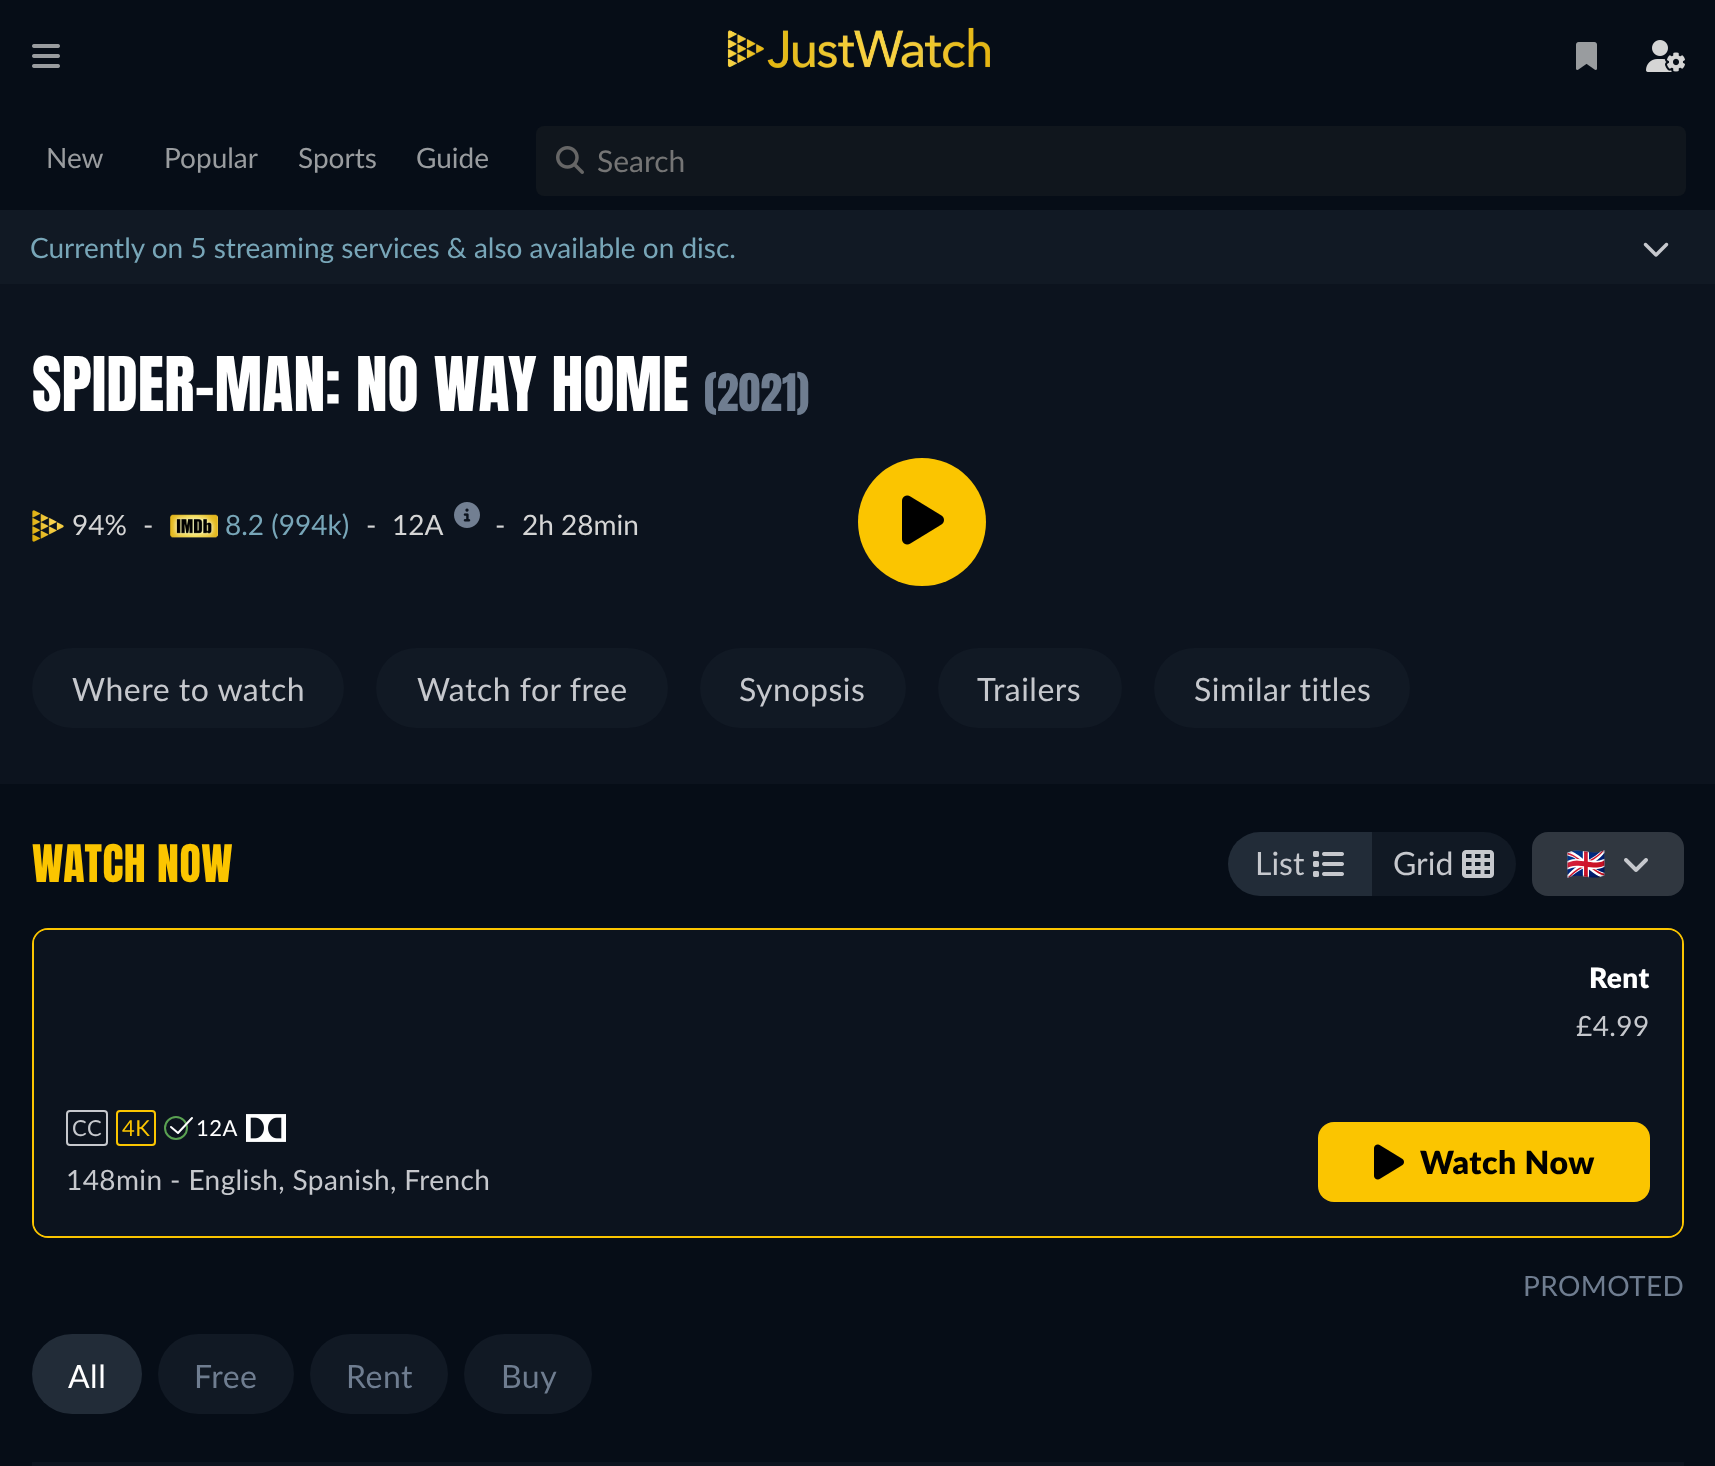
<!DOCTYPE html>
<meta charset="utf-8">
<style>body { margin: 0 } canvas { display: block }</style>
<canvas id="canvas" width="1715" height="1466"></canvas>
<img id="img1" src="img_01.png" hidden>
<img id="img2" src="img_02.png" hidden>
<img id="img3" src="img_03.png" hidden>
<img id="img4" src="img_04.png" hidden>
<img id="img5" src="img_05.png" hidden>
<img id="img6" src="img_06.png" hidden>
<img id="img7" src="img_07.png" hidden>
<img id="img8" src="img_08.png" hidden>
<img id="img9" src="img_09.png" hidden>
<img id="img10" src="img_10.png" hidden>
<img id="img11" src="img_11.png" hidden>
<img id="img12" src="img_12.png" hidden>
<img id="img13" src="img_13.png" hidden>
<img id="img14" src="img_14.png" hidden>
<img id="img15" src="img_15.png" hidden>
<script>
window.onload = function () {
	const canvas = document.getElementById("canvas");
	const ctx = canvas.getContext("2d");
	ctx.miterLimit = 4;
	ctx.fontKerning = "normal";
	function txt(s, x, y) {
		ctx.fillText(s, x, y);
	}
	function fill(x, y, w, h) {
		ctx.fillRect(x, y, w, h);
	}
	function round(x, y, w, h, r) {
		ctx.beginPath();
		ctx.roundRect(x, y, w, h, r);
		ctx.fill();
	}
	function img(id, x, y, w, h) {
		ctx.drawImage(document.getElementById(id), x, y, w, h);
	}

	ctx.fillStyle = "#060D17";
	fill(0, 0, 1715, 1466);
	img("img1", 727, 27, 263, 41);
	img("img2", 32, 44, 28, 24);
	img("img3", 1646, 40, 39, 32);
	img("img4", 1576, 42, 21, 28);
	ctx.fillStyle = "#10161D";
	round(536, 126, 1150, 70, 8);
	img("img5", 556, 146, 28, 28);
	ctx.fillStyle = "#111924";
	fill(0, 210, 1715, 74);
	img("img6", 1643, 242, 26, 15);
	ctx.fillStyle = "#0C131E";
	fill(0, 284, 1715, 500);
	img("img7", 32, 510, 32, 32);
	img("img8", 170, 514, 48, 24);
	img("img9", 454, 502, 26, 26);
	ctx.fillStyle = "#111924";
	round(32, 648, 312, 80, 40);
	round(376, 648, 292, 80, 40);
	round(700, 648, 206, 80, 40);
	round(938, 648, 184, 80, 40);
	round(1154, 648, 256, 80, 40);
	ctx.fillStyle = "#FBC500";
	ctx.beginPath();
	ctx.arc(922, 522, 64, 0, Math.PI * 2);
	ctx.fill();
	img("img10", 902, 495, 42, 50);
	ctx.fillStyle = "#222C38";
	ctx.beginPath();
	ctx.roundRect(1228, 832, 144, 64, [32, 0, 0, 32]);
	ctx.fill();
	img("img11", 1313, 851, 31, 26);
	ctx.fillStyle = "#111924";
	ctx.beginPath();
	ctx.roundRect(1372, 832, 144, 64, [0, 32, 32, 0]);
	ctx.fill();
	img("img12", 1462, 850, 32, 28);
	ctx.fillStyle = "#303740";
	round(1532, 832, 152, 64, 16);
	img("img13", 1624, 858, 24, 14);
	ctx.beginPath();
	ctx.roundRect(33, 929, 1650, 308, 15);
	ctx.strokeStyle = "#FBC500";
	ctx.lineWidth = 2;
	ctx.stroke();
	ctx.fillStyle = "#0C131E";
	round(34, 930, 1648, 306, 14);
	ctx.beginPath();
	ctx.roundRect(67, 1111, 40, 34, 3);
	ctx.strokeStyle = "#C6C8CD";
	ctx.stroke();
	ctx.beginPath();
	ctx.roundRect(117, 1111, 38, 34, 3);
	ctx.strokeStyle = "#FBC500";
	ctx.stroke();
	ctx.beginPath();
	ctx.arc(176, 1128, 11, 0, Math.PI * 2);
	ctx.strokeStyle = "#5AA152";
	ctx.stroke();
	ctx.beginPath();
	ctx.moveTo(171, 1127);
	ctx.lineTo(178, 1133);
	ctx.lineTo(192, 1118);
	ctx.strokeStyle = "#FFFFFF";
	ctx.lineCap = "round";
	ctx.lineJoin = "round";
	ctx.stroke();
	img("img14", 246, 1114, 40, 28);
	ctx.fillStyle = "#FBC500";
	round(1318, 1122, 332, 80, 16);
	img("img15", 1374, 1144, 30, 36);
	ctx.fillStyle = "#222C38";
	round(32, 1334, 110, 80, 40);
	ctx.fillStyle = "#111924";
	round(158, 1334, 136, 80, 40);
	round(310, 1334, 138, 80, 40);
	round(464, 1334, 128, 80, 40);
	ctx.fillStyle = "#0C131E";
	fill(32, 1462, 1652, 4);
	ctx.font = "28px Lato";
	ctx.fillStyle = "#999C9F";
	txt("New", 46, 168);
	txt("Popular", 164, 168);
	txt("Sports", 298, 168);
	txt("Guide", 416, 168);
	ctx.font = "30px Lato";
	ctx.fillStyle = "#757575";
	txt("Search", 597, 172);
	ctx.font = "28px Lato";
	ctx.fillStyle = "#78A6B8";
	txt("Currently on 5 streaming services & also available on disc.", 30, 258);
	ctx.font = "64px Anton";
	ctx.fillStyle = "#FFFFFF";
	txt("SPIDER-MAN: NO WAY HOME", 32, 411);
	ctx.font = "44px Anton";
	ctx.fillStyle = "#6F7D90";
	txt("(2021)", 704, 411);
	ctx.font = "28px Lato";
	ctx.fillStyle = "#D5D5D5";
	txt("94%", 72, 535);
	txt("-", 143, 535);
	ctx.fillStyle = "#78A6B8";
	txt("8.2 (994k)", 225, 535);
	ctx.fillStyle = "#D5D5D5";
	txt("-", 366, 535);
	txt("12A", 392, 535);
	txt("-", 495, 535);
	txt("2h 28min", 522, 535);
	ctx.letterSpacing = "0.5px";
	ctx.font = "32px Lato";
	ctx.fillStyle = "#C6C8CD";
	txt("Where to watch", 72, 701);
	txt("Watch for free", 417, 701);
	txt("Synopsis", 739, 701);
	txt("Trailers", 977, 701);
	txt("Similar titles", 1194, 701);
	ctx.font = "44px Anton";
	ctx.fillStyle = "#FBC500";
	txt("WATCH NOW", 32, 882);
	ctx.letterSpacing = "0px";
	ctx.font = "32px Lato";
	ctx.fillStyle = "#C6C8CD";
	txt("List", 1255, 875);
	txt("Grid", 1393, 875);
	ctx.letterSpacing = "0.5px";
	ctx.font = "32px Noto Color Emoji";
	txt("🇬🇧", 1566, 875);
	ctx.font = "22px Lato";
	txt("CC", 72, 1136);
	ctx.fillStyle = "#FBC500";
	txt("4K", 122, 1136);
	ctx.fillStyle = "#FFFFFF";
	txt("12A", 196, 1136);
	ctx.letterSpacing = "0.4px";
	ctx.font = "28px Lato";
	ctx.fillStyle = "#C6C8CD";
	txt("148min - English, Spanish, French", 66, 1190);
	ctx.font = "900 28px Lato";
	ctx.fillStyle = "#FFFFFF";
	txt("Rent", 1589, 988);
	ctx.font = "28px Lato";
	ctx.fillStyle = "#C6C8CD";
	txt("£4.99", 1576, 1036);
	ctx.letterSpacing = "0.5px";
	ctx.font = "900 32px Lato";
	ctx.fillStyle = "#000000";
	txt("Watch Now", 1420, 1174);
	ctx.letterSpacing = "0.4px";
	ctx.font = "28px Lato";
	ctx.fillStyle = "#6F7D90";
	txt("PROMOTED", 1523, 1296);
	ctx.letterSpacing = "0.5px";
	ctx.font = "32px Lato";
	ctx.fillStyle = "#FFFFFF";
	txt("All", 68, 1388);
	ctx.fillStyle = "#6F7D90";
	txt("Free", 194, 1388);
	txt("Rent", 346, 1388);
	txt("Buy", 501, 1388);
};
</script>
